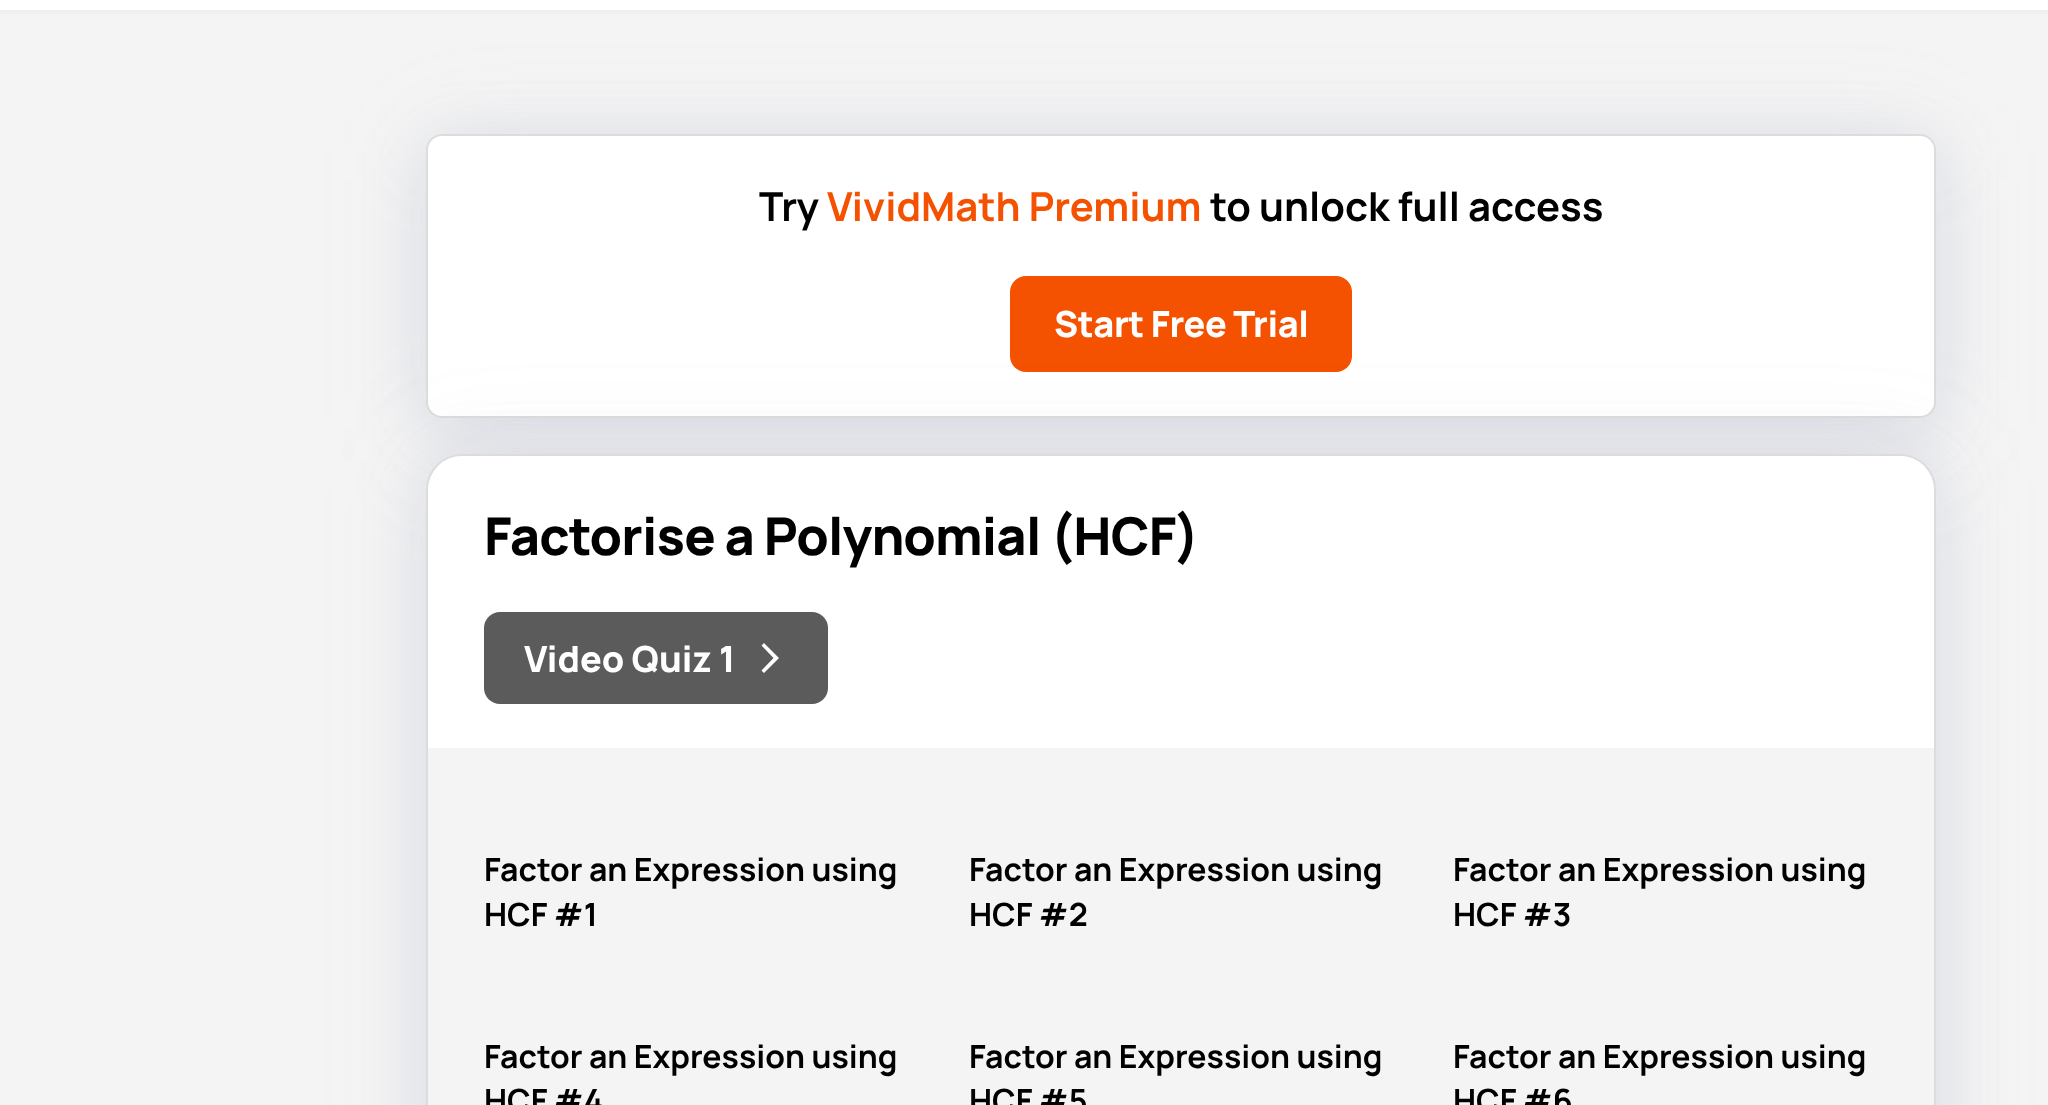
<!DOCTYPE html>
<meta charset="utf-8">
<style>body { margin: 0 } canvas { display: block }</style>
<canvas id="canvas" width="2048" height="1105"></canvas>
<script>
window.onload = function () {
	const canvas = document.getElementById("canvas");
	const ctx = canvas.getContext("2d");
	ctx.miterLimit = 4;
	ctx.fontKerning = "normal";
	function txt(s, x, y) {
		ctx.fillText(s, x, y);
	}
	function fill(x, y, w, h) {
		ctx.fillRect(x, y, w, h);
	}
	function round(x, y, w, h, r) {
		ctx.beginPath();
		ctx.roundRect(x, y, w, h, r);
		ctx.fill();
	}

	ctx.fillStyle = "#F4F4F4";
	fill(0, 0, 2048, 1105);
	ctx.fillStyle = "#FFFFFF";
	fill(0, 0, 2048, 10);
	ctx.fillStyle = "#EFEFEF";
	fill(0, 10, 2048, 4);
	ctx.fillStyle = "rgba(166, 173, 201, 0.22)";
	ctx.filter = "blur(30px)";
	ctx.beginPath();
	ctx.roundRect(426, 144, 1510, 284, 16);
	ctx.fill();
	ctx.filter = "none";
	ctx.fillStyle = "rgba(154, 160, 185, 0.15)";
	ctx.filter = "blur(50px)";
	ctx.beginPath();
	ctx.roundRect(426, 144, 1510, 284, 16);
	ctx.fill();
	ctx.filter = "none";
	ctx.fillStyle = "#FFFFFF";
	ctx.beginPath();
	ctx.roundRect(427, 135, 1508, 282, 15);
	ctx.fill();
	ctx.strokeStyle = "#DCDCDC";
	ctx.lineWidth = 2;
	ctx.stroke();
	ctx.fillStyle = "#F45100";
	round(1010, 276, 342, 96, 16);
	ctx.fillStyle = "rgba(166, 173, 201, 0.22)";
	ctx.filter = "blur(30px)";
	ctx.beginPath();
	ctx.roundRect(426, 464, 1510, 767, 36);
	ctx.fill();
	ctx.filter = "none";
	ctx.fillStyle = "rgba(154, 160, 185, 0.15)";
	ctx.filter = "blur(50px)";
	ctx.beginPath();
	ctx.roundRect(426, 464, 1510, 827, 36);
	ctx.fill();
	ctx.filter = "none";
	ctx.fillStyle = "#F4F4F4";
	ctx.beginPath();
	ctx.roundRect(427, 455, 1508, 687, 35);
	ctx.fill();
	ctx.stroke();
	ctx.fillStyle = "#FFFFFF";
	ctx.beginPath();
	ctx.roundRect(428, 456, 1506, 292, [34, 34, 0, 0]);
	ctx.fill();
	ctx.fillStyle = "#5B5B5B";
	round(484, 612, 344, 92, 16);
	ctx.fillStyle = "#FFFFFF";
	ctx.beginPath();
	ctx.moveTo(764, 673);
	ctx.lineTo(761.5, 670.5);
	ctx.lineTo(773.5, 658);
	ctx.lineTo(761.5, 645.5);
	ctx.lineTo(764, 643);
	ctx.lineTo(779, 658);
	ctx.closePath();
	ctx.fill();
	ctx.font = "bold 40px Manrope";
	ctx.fillStyle = "#000000";
	txt("Try", 759, 221);
	ctx.fillStyle = "#F45100";
	txt("VividMath Premium", 827, 221);
	ctx.fillStyle = "#000000";
	txt("to unlock full access", 1210, 221);
	ctx.letterSpacing = "-0.4px";
	ctx.font = "800 36px Manrope";
	ctx.fillStyle = "#FFFFFF";
	txt("Start Free Trial", 1054, 337);
	ctx.letterSpacing = "-0.8px";
	ctx.font = "800 52px Manrope";
	ctx.fillStyle = "#000000";
	txt("Factorise a Polynomial (HCF)", 484, 555);
	ctx.letterSpacing = "0px";
	ctx.font = "800 36px Manrope";
	ctx.fillStyle = "#FFFFFF";
	txt("Video Quiz 1", 524, 672);
	ctx.font = "bold 32px Manrope";
	ctx.fillStyle = "#000000";
	txt("Factor an Expression using", 484, 881);
	txt("HCF #1", 484, 926);
	txt("Factor an Expression using", 969, 881);
	txt("HCF #2", 969, 926);
	txt("Factor an Expression using", 1453, 881);
	txt("HCF #3", 1453, 926);
	txt("Factor an Expression using", 484, 1068);
	txt("HCF #4", 484, 1112);
	txt("Factor an Expression using", 969, 1068);
	txt("HCF #5", 969, 1112);
	txt("Factor an Expression using", 1453, 1068);
	txt("HCF #6", 1453, 1112);
};
</script>
